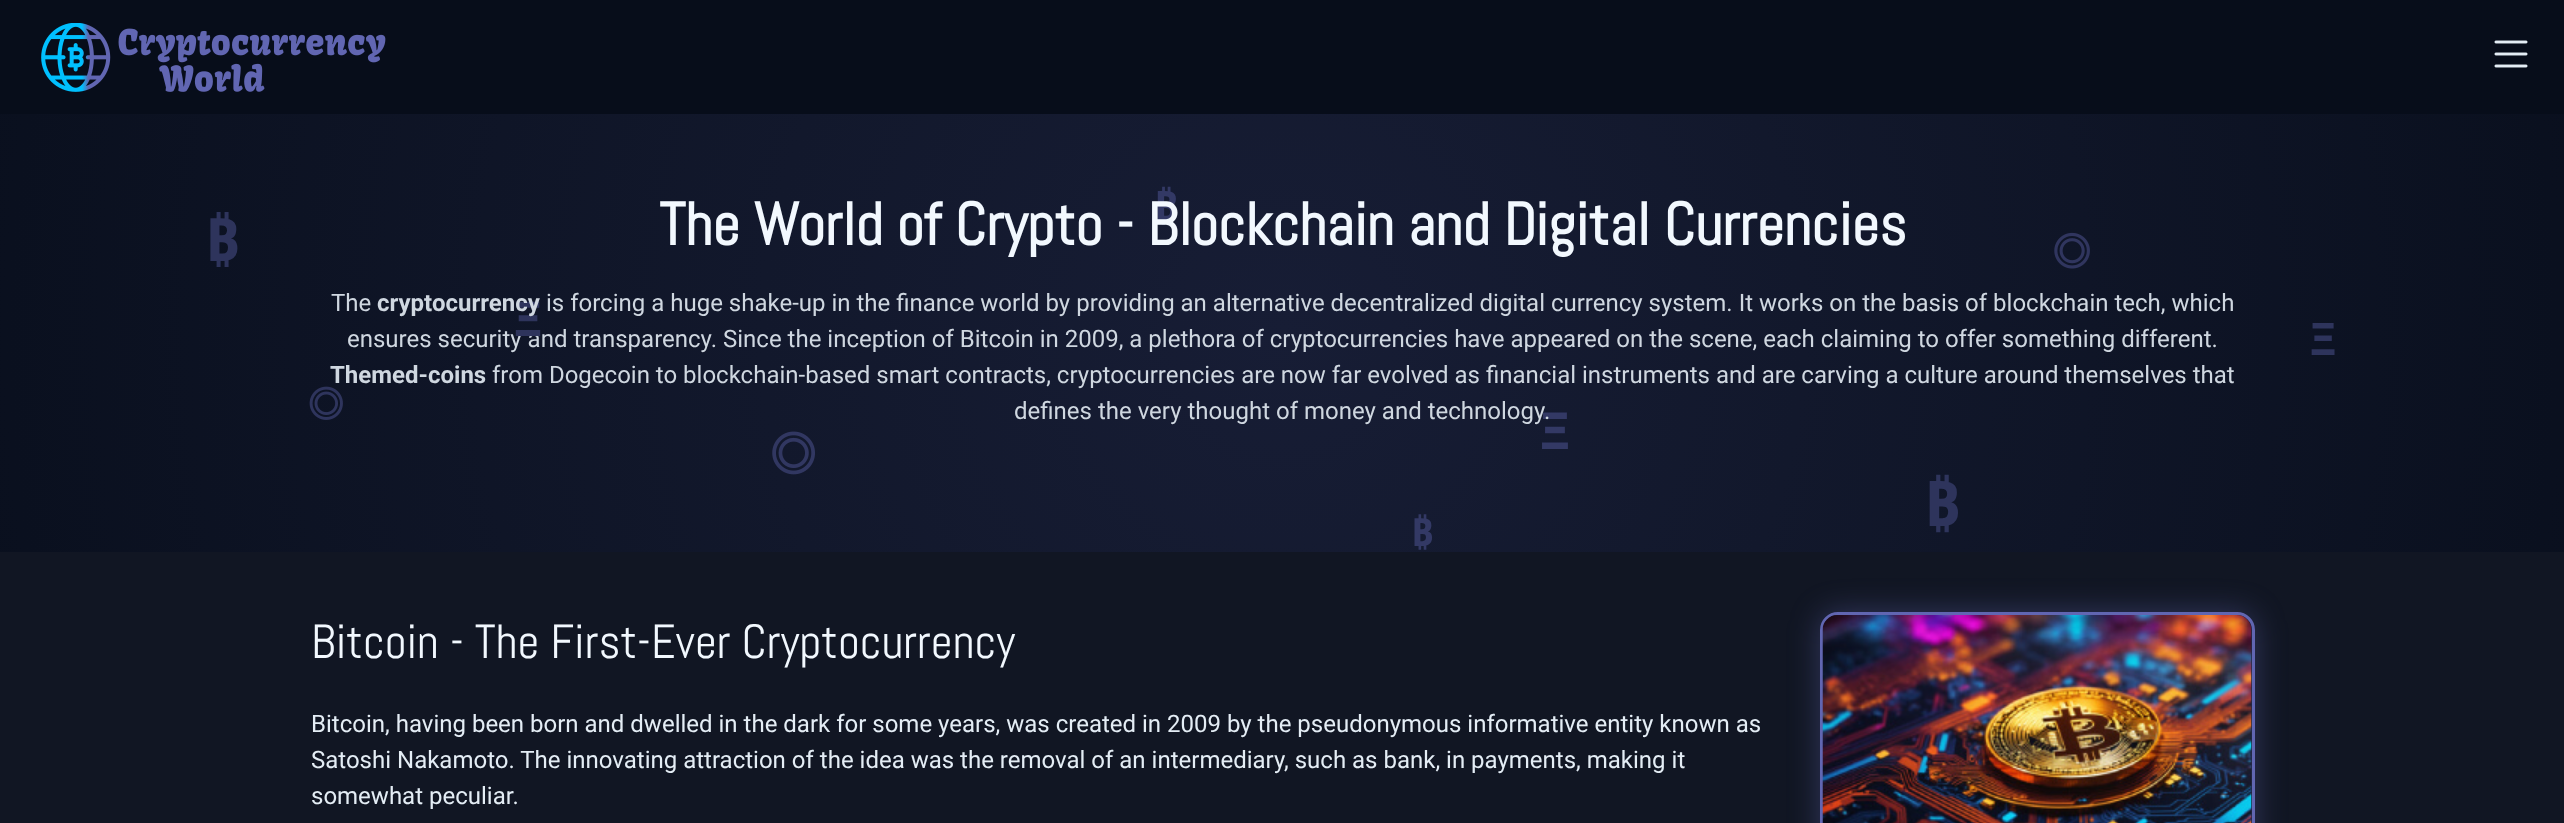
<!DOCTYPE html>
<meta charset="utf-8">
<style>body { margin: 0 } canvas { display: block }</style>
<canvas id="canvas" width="2564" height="823"></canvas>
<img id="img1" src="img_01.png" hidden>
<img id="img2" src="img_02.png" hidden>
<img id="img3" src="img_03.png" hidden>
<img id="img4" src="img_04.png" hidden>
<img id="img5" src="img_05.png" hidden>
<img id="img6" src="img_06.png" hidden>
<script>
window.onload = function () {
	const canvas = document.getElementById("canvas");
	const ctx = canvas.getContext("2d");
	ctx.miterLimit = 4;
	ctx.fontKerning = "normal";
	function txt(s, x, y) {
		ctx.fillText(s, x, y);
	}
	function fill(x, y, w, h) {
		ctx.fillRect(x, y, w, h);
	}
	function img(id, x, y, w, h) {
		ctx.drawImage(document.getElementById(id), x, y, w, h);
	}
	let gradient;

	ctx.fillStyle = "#070D1A";
	fill(0, 0, 2564, 823);
	img("img1", 41, 23, 345, 69);
	img("img2", 2494, 40, 34, 28);
	gradient = ctx.createRadialGradient(1283, 333, 0, 1283, 333, 2602);
	gradient.addColorStop(0, "#171D35");
	gradient.addColorStop(0.2, "#12182C");
	gradient.addColorStop(0.6, "#070D1A");
	ctx.fillStyle = gradient;
	fill(0, 114, 2564, 438);
	img("img3", 2054, 232, 36, 37);
	img("img4", 309, 386, 34, 34);
	img("img5", 772, 431, 43, 44);
	ctx.fillStyle = "#111623";
	fill(0, 552, 2564, 271);
	ctx.fillStyle = "rgba(97, 102, 178, 0.4)";
	ctx.filter = "blur(15px)";
	ctx.beginPath();
	ctx.roundRect(1820, 612, 435, 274, 18);
	ctx.fill();
	ctx.filter = "none";
	ctx.beginPath();
	ctx.roundRect(1821.5, 613.5, 432, 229, 16.5);
	ctx.strokeStyle = "#6166B2";
	ctx.lineWidth = 3;
	ctx.stroke();
	img("img6", 1822, 615, 430, 208);
	ctx.font = "bold 42px Noto Sans";
	ctx.fillStyle = "#333965";
	txt("₿", 1154, 221);
	ctx.font = "bold 60px Noto Sans";
	ctx.fillStyle = "#2E345C";
	txt("₿", 205, 261);
	ctx.font = "bold 60px Abel";
	ctx.fillStyle = "#F2F8FE";
	txt("The World of Crypto - Blockchain and Digital Currencies", 659, 245);
	ctx.font = "24px Roboto";
	ctx.fillStyle = "#CFD7E0";
	txt("The", 331, 311);
	txt("is forcing a huge shake-up in the finance world by providing an alternative decentralized digital currency system. It works on the basis of blockchain tech, which", 546, 311);
	txt("ensures security and transparency. Since the inception of Bitcoin in 2009, a plethora of cryptocurrencies have appeared on the scene, each claiming to offer something different.", 347, 347);
	ctx.font = "bold 24px Roboto";
	txt("Themed-coins", 330, 383);
	ctx.font = "24px Roboto";
	txt("from Dogecoin to blockchain-based smart contracts, cryptocurrencies are now far evolved as financial instruments and are carving a culture around themselves that", 492, 383);
	ctx.font = "bold 48px Noto Sans";
	ctx.fillStyle = "#2E345C";
	txt("Ξ", 513, 336);
	ctx.font = "bold 24px Roboto";
	ctx.fillStyle = "#CFD7E0";
	txt("cryptocurrency", 377, 311);
	ctx.font = "bold 45px Noto Sans";
	ctx.fillStyle = "#2E345C";
	txt("Ξ", 2309, 355);
	ctx.font = "bold 51px Noto Sans";
	ctx.fillStyle = "#333965";
	txt("Ξ", 1539, 449);
	ctx.font = "24px Roboto";
	ctx.fillStyle = "#CFD7E0";
	txt("defines the very thought of money and technology.", 1014, 419);
	ctx.font = "bold 39px Noto Sans";
	ctx.fillStyle = "#333965";
	txt("₿", 1411, 546);
	ctx.font = "bold 63px Noto Sans";
	ctx.fillStyle = "#2E345C";
	txt("₿", 1924, 526);
	ctx.font = "48px Abel";
	ctx.fillStyle = "#F2F8FE";
	txt("Bitcoin - The First-Ever Cryptocurrency", 311, 658);
	ctx.font = "24px Roboto";
	ctx.fillStyle = "#E4EDF5";
	txt("Bitcoin, having been born and dwelled in the dark for some years, was created in 2009 by the pseudonymous informative entity known as", 311, 732);
	txt("Satoshi Nakamoto. The innovating attraction of the idea was the removal of an intermediary, such as bank, in payments, making it", 311, 768);
	txt("somewhat peculiar.", 311, 804);
};
</script>
